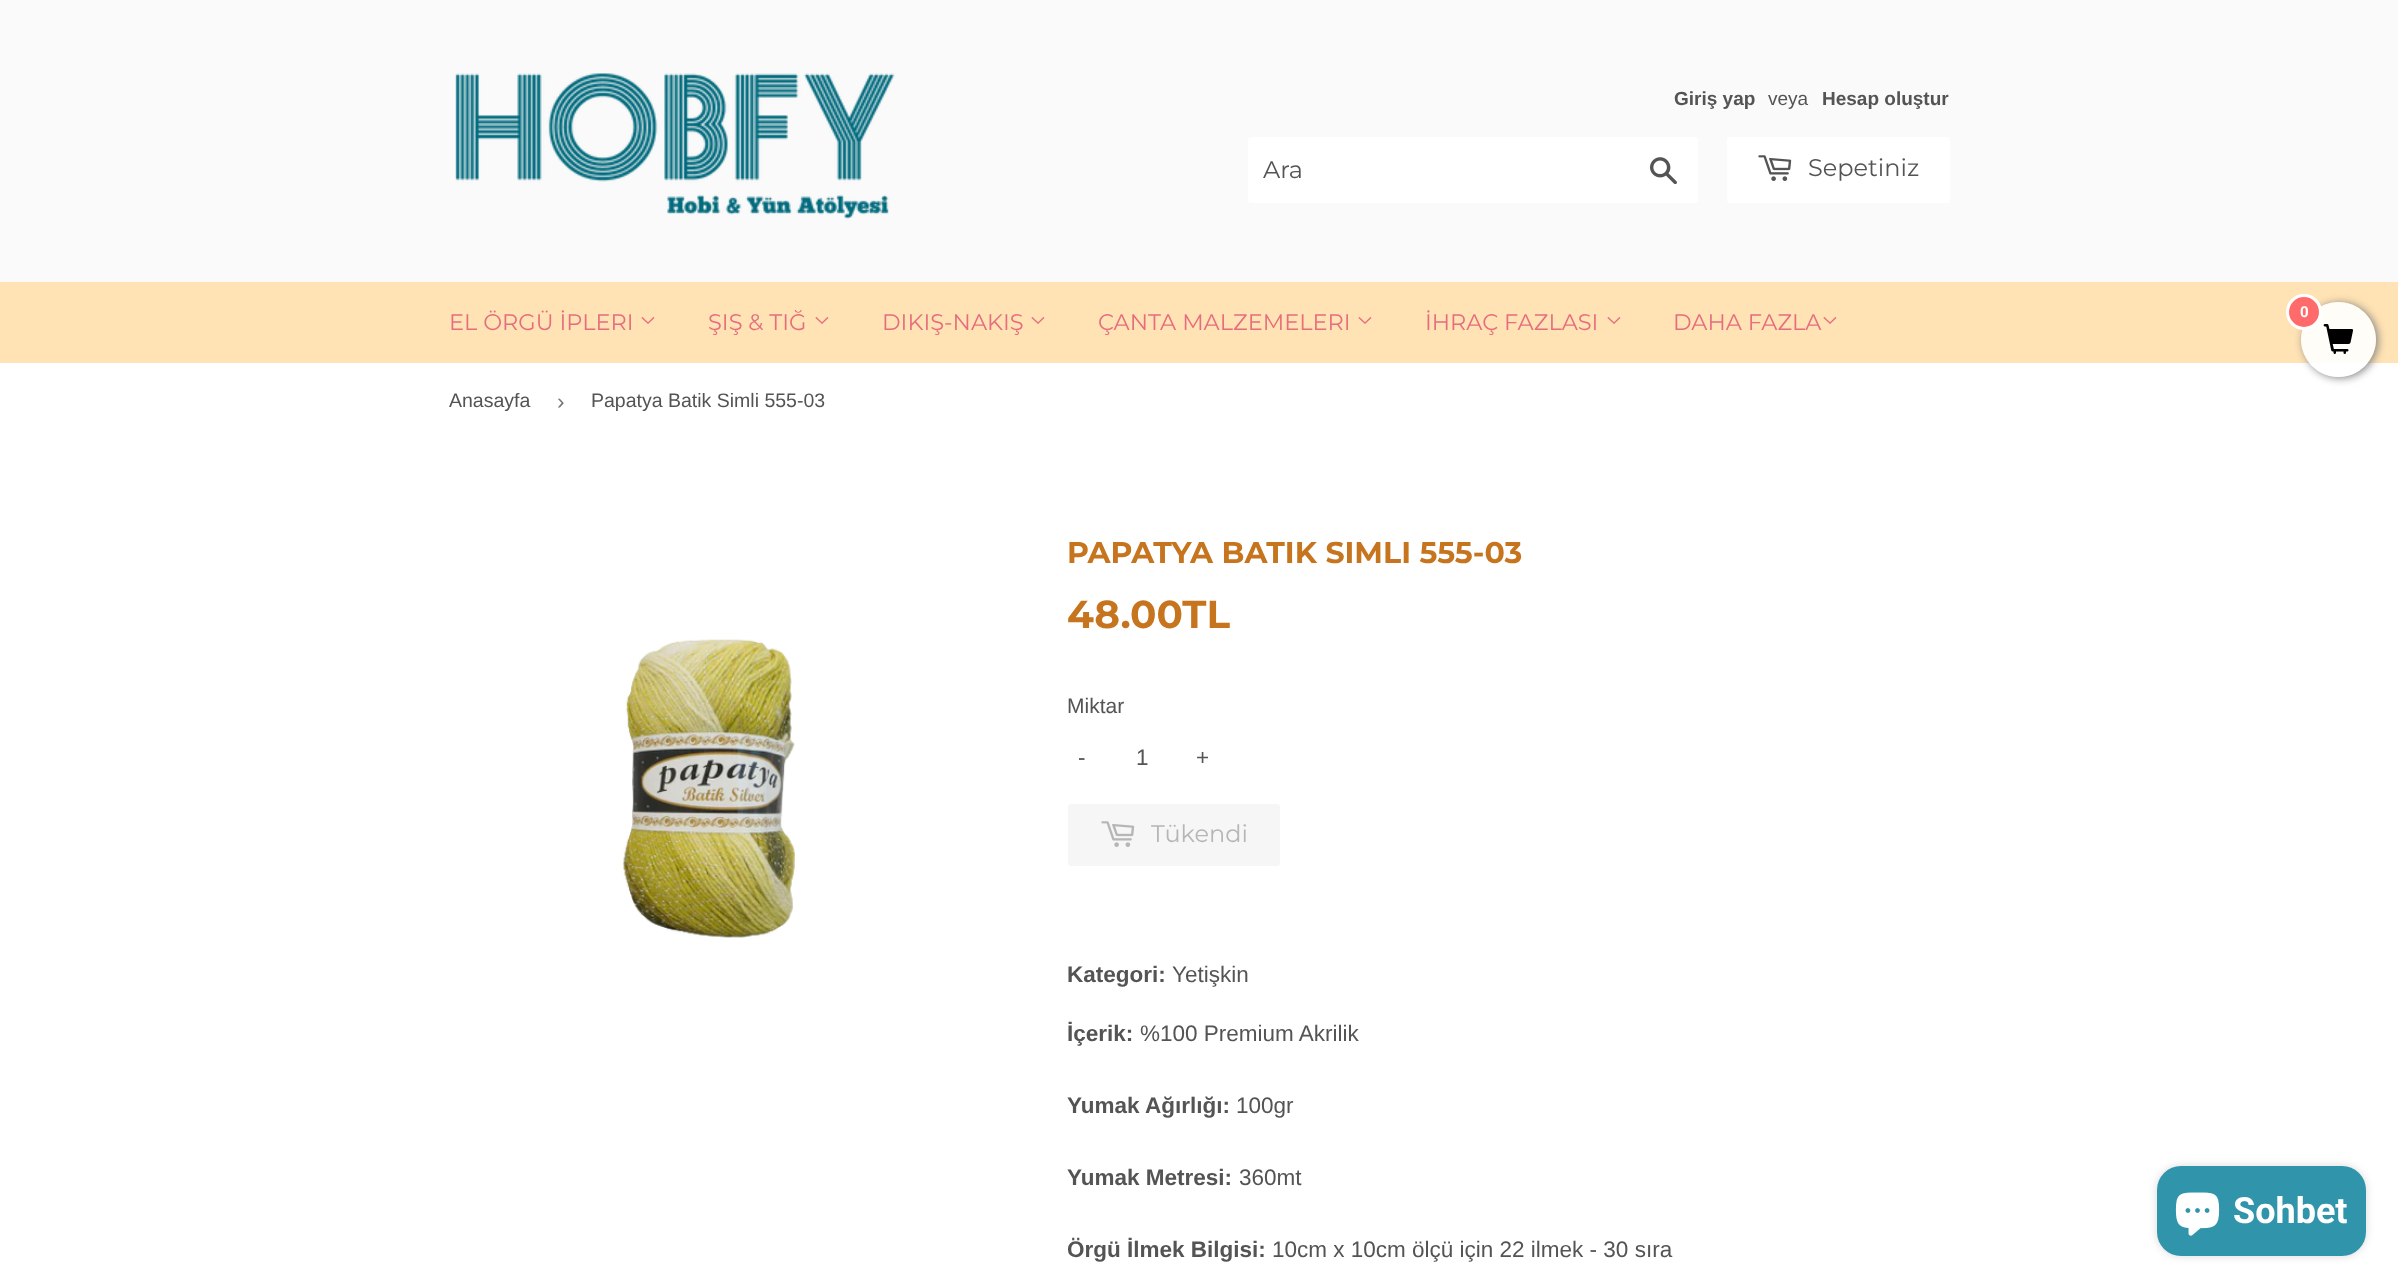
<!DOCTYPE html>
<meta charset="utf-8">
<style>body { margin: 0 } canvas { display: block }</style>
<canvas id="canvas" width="2398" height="1287"></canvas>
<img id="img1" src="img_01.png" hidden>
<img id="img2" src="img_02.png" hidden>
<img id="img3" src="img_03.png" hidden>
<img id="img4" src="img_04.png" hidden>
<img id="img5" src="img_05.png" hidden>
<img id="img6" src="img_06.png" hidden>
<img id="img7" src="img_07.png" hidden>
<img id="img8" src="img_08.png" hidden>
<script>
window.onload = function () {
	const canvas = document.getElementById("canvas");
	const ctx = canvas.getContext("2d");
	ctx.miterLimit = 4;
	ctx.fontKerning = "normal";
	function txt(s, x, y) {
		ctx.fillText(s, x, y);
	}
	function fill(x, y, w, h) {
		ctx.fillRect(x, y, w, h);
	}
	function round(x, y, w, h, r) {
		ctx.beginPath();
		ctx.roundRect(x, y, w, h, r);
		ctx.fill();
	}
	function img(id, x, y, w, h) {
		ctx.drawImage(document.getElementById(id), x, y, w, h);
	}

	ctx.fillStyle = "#FFFFFF";
	fill(0, 0, 2398, 1287);
	ctx.fillStyle = "#FAFAFA";
	fill(0, 0, 2398, 282);
	img("img1", 455, 73, 440, 147);
	ctx.fillStyle = "#FFFFFF";
	round(1248, 137, 450, 66, 3);
	img("img2", 1650, 157, 27, 28);
	round(1727, 137, 223, 66, 3);
	img("img3", 1758, 155, 34, 26);
	ctx.fillStyle = "#FFE3B4";
	fill(0, 282, 2398, 81);
	img("img4", 641, 317, 14, 7);
	img("img4", 815, 317, 14, 7);
	img("img4", 1031, 317, 14, 7);
	img("img4", 1358, 317, 14, 7);
	img("img4", 1607, 317, 14, 7);
	img("img4", 1823, 317, 14, 7);
	ctx.save();
	ctx.beginPath();
	ctx.moveTo(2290, 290);
	ctx.lineTo(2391, 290);
	ctx.lineTo(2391, 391);
	ctx.lineTo(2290, 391);
	ctx.closePath();
	ctx.moveTo(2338.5, 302);
	ctx.bezierCurveTo(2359, 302, 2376, 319, 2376, 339.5);
	ctx.bezierCurveTo(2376, 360, 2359, 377, 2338.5, 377);
	ctx.bezierCurveTo(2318, 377, 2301, 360, 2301, 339.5);
	ctx.bezierCurveTo(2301, 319, 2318, 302, 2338.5, 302);
	ctx.closePath();
	ctx.clip("evenodd");
	ctx.fillStyle = "#808080";
	ctx.filter = "blur(4px)";
	ctx.beginPath();
	ctx.roundRect(2303, 303, 75, 75, 37.5);
	ctx.fill();
	ctx.filter = "none";
	ctx.restore();
	ctx.fillStyle = "rgba(255, 255, 255, 0.9)";
	ctx.beginPath();
	ctx.arc(2338.5, 339.5, 37.5, 0, Math.PI * 2);
	ctx.fill();
	ctx.fillStyle = "#FF6B6B";
	ctx.beginPath();
	ctx.arc(2304, 312, 16.5, 0, Math.PI * 2);
	ctx.fill();
	ctx.strokeStyle = "#FFFFFF";
	ctx.lineWidth = 3;
	ctx.stroke();
	img("img5", 2323, 324, 31, 30);
	img("img6", 622, 639, 175, 299);
	ctx.fillStyle = "#F6F6F6";
	round(1068, 804, 212, 62, 3);
	img("img7", 1101, 821, 34, 26);
	ctx.fillStyle = "rgba(0, 0, 0, 0.15)";
	ctx.filter = "blur(4px)";
	ctx.beginPath();
	ctx.roundRect(2157, 1166, 209, 90, 24);
	ctx.fill();
	ctx.filter = "none";
	ctx.fillStyle = "#3095AB";
	round(2157, 1166, 209, 90, 24);
	img("img8", 2175, 1192, 45, 44);
	ctx.font = "bold 19px Liberation Sans";
	ctx.fillStyle = "#545454";
	txt("Giriş yap", 1674, 105);
	ctx.font = "19px Liberation Sans";
	txt("veya", 1768, 105);
	ctx.font = "bold 19px Liberation Sans";
	txt("Hesap oluştur", 1822, 105);
	ctx.font = "24px Montserrat";
	txt("Ara", 1263, 178);
	txt("Sepetiniz", 1808, 176);
	ctx.font = "22.5px Montserrat";
	ctx.fillStyle = "#E66D7F";
	txt("EL ÖRGÜ İPLERI", 449, 330);
	txt("ŞIŞ & TIĞ", 708, 330);
	txt("DIKIŞ-NAKIŞ", 882, 330);
	txt("ÇANTA MALZEMELERI", 1098, 330);
	txt("İHRAÇ FAZLASI", 1425, 330);
	txt("DAHA FAZLA", 1673, 330);
	ctx.font = "bold 15px Roboto";
	ctx.fillStyle = "#FFFFFF";
	txt("0", 2300, 317);
	ctx.font = "19.5px Liberation Sans";
	ctx.fillStyle = "#545454";
	txt("Anasayfa", 449, 407);
	ctx.font = "22.5px Liberation Sans";
	ctx.fillStyle = "#767676";
	txt("›", 557, 409);
	ctx.font = "19.5px Liberation Sans";
	ctx.fillStyle = "#545454";
	txt("Papatya Batik Simli 555-03", 591, 407);
	ctx.font = "100 30px Montserrat";
	ctx.fillStyle = "#C6741E";
	txt("PAPATYA BATIK SIMLI 555-03", 1067, 563);
	ctx.font = "100 39px Montserrat";
	txt("48.00TL", 1067, 628);
	ctx.font = "21px Liberation Sans";
	ctx.fillStyle = "#545454";
	txt("Miktar", 1067, 713);
	ctx.font = "22.5px Liberation Sans";
	txt("-", 1078, 765);
	txt("1", 1136, 765);
	txt("+", 1196, 765);
	ctx.font = "24px Montserrat";
	ctx.fillStyle = "#B6B6B6";
	txt("Tükendi", 1151, 842);
	ctx.font = "bold 22.5px Liberation Sans";
	ctx.fillStyle = "#545454";
	txt("Kategori:", 1067, 982);
	ctx.font = "22.5px Liberation Sans";
	txt("Yetişkin", 1172, 982);
	ctx.font = "bold 22.5px Liberation Sans";
	txt("İçerik:", 1067, 1041);
	ctx.font = "22.5px Liberation Sans";
	txt("%100 Premium Akrilik", 1140, 1041);
	ctx.font = "bold 22.5px Liberation Sans";
	txt("Yumak Ağırlığı:", 1067, 1113);
	ctx.font = "22.5px Liberation Sans";
	txt("100gr", 1236, 1113);
	ctx.font = "bold 22.5px Liberation Sans";
	txt("Yumak Metresi:", 1067, 1185);
	ctx.font = "22.5px Liberation Sans";
	txt("360mt", 1239, 1185);
	ctx.font = "bold 22.5px Liberation Sans";
	txt("Örgü İlmek Bilgisi:", 1067, 1257);
	ctx.font = "22.5px Liberation Sans";
	txt("10cm x 10cm ölçü için 22 ilmek - 30 sıra", 1272, 1257);
	ctx.font = "bold 36px Roboto";
	ctx.fillStyle = "#FFFFFF";
	txt("Sohbet", 2233, 1223);
};
</script>
